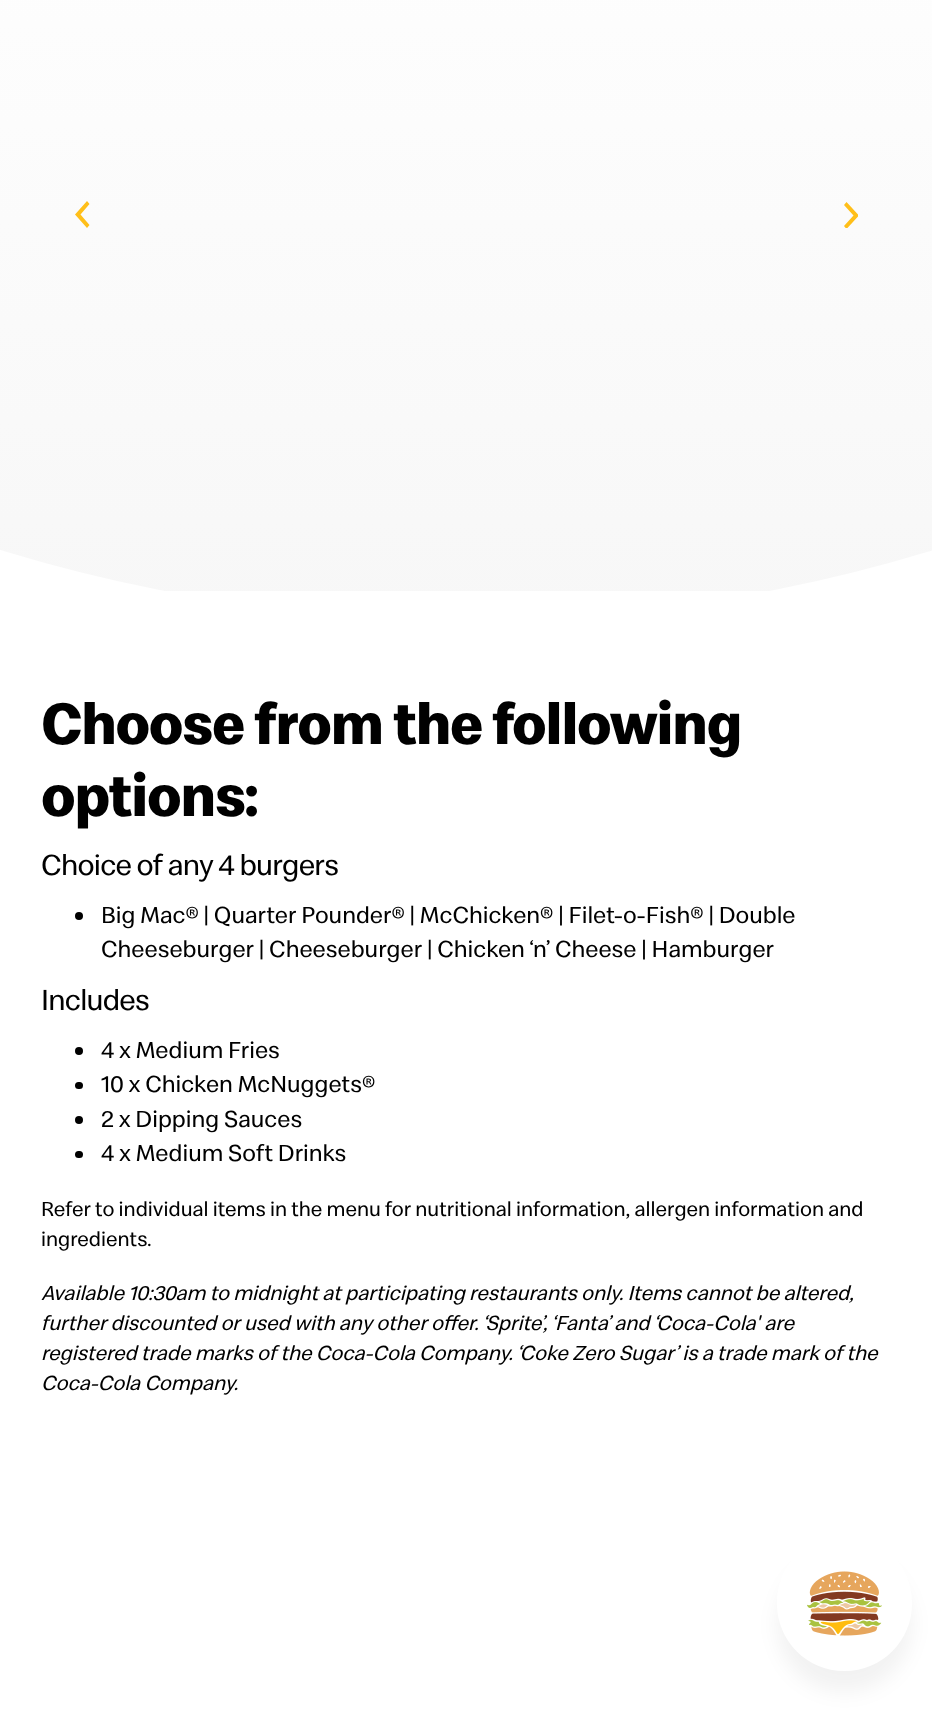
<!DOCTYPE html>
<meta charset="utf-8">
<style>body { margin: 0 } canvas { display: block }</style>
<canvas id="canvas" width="932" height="1730"></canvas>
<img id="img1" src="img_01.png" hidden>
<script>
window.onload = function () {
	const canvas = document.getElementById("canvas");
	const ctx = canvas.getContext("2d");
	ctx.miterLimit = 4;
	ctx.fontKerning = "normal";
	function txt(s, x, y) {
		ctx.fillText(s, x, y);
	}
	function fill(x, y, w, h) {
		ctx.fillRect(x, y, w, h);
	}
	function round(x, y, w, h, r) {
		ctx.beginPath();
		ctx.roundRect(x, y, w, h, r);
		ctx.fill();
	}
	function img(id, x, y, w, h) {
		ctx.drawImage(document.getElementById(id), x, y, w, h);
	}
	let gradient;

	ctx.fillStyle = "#FFFFFF";
	fill(0, 0, 932, 1730);
	ctx.save();
	ctx.beginPath();
	ctx.rect(0, 0, 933, 591);
	ctx.clip();
	gradient = ctx.createLinearGradient(467, -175, 467, 620);
	gradient.addColorStop(0, "#FFFFFF");
	gradient.addColorStop(1, "#F7F7F7");
	ctx.fillStyle = gradient;
	ctx.beginPath();
	ctx.ellipse(467, -966, 1587.5, 1586, 0, 0, Math.PI * 2);
	ctx.fill();
	ctx.restore();
	ctx.fillStyle = "#FFBF19";
	ctx.beginPath();
	ctx.moveTo(75, 214.5);
	ctx.lineTo(87, 201);
	ctx.lineTo(89.5, 204);
	ctx.lineTo(80.5, 214.5);
	ctx.lineTo(89.5, 225);
	ctx.lineTo(87, 228);
	ctx.closePath();
	ctx.fill();
	ctx.save();
	ctx.beginPath();
	ctx.rect(843, 201, 15, 27);
	ctx.clip();
	ctx.beginPath();
	ctx.moveTo(859, 215.5);
	ctx.lineTo(846.5, 229);
	ctx.lineTo(844, 226);
	ctx.lineTo(853.5, 215.5);
	ctx.lineTo(844, 205);
	ctx.lineTo(846.5, 202);
	ctx.closePath();
	ctx.fill();
	ctx.restore();
	ctx.fillStyle = "#000000";
	ctx.beginPath();
	ctx.arc(79, 916, 4, 0, Math.PI * 2);
	ctx.fill();
	ctx.beginPath();
	ctx.arc(79, 1051, 4, 0, Math.PI * 2);
	ctx.fill();
	round(75, 1082, 8, 7, 3.5);
	ctx.beginPath();
	ctx.arc(79, 1120, 4, 0, Math.PI * 2);
	ctx.fill();
	round(75, 1151, 8, 7, 3.5);
	ctx.save();
	ctx.beginPath();
	ctx.moveTo(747, 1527);
	ctx.lineTo(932, 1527);
	ctx.lineTo(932, 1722);
	ctx.lineTo(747, 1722);
	ctx.closePath();
	ctx.moveTo(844.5, 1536);
	ctx.bezierCurveTo(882, 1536, 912, 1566, 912, 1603.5);
	ctx.bezierCurveTo(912, 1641, 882, 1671, 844.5, 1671);
	ctx.bezierCurveTo(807, 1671, 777, 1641, 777, 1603.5);
	ctx.bezierCurveTo(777, 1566, 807, 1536, 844.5, 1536);
	ctx.closePath();
	ctx.clip("evenodd");
	ctx.fillStyle = "rgba(0, 0, 0, 0.05)";
	ctx.filter = "blur(9.5px)";
	ctx.beginPath();
	ctx.roundRect(777, 1557, 135, 135, 67.5);
	ctx.fill();
	ctx.filter = "none";
	ctx.restore();
	img("img1", 807, 1571, 75, 65);
	ctx.letterSpacing = "-1.5px";
	ctx.font = "bold 60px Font";
	txt("Choose from the following", 41, 744);
	txt("options:", 41, 816);
	ctx.letterSpacing = "-0.75px";
	ctx.font = "30px Font";
	txt("Choice of any 4 burgers", 41, 875);
	ctx.letterSpacing = "0px";
	ctx.font = "24px Font";
	txt("Big Mac® | Quarter Pounder® | McChicken® | Filet-o-Fish® | Double", 101, 923);
	txt("Cheeseburger | Cheeseburger | Chicken ‘n’ Cheese | Hamburger", 101, 957);
	ctx.letterSpacing = "-0.75px";
	ctx.font = "30px Font";
	txt("Includes", 41, 1010);
	ctx.letterSpacing = "0px";
	ctx.font = "24px Font";
	txt("4 x Medium Fries", 101, 1058);
	txt("10 x Chicken McNuggets®", 101, 1092);
	txt("2 x Dipping Sauces", 101, 1127);
	txt("4 x Medium Soft Drinks", 101, 1161);
	ctx.font = "21px Font";
	txt("Refer to individual items in the menu for nutritional information, allergen information and", 41, 1216);
	txt("ingredients.", 41, 1246);
	ctx.font = "italic 21px Font";
	txt("A", 41, 1300);
	txt("vailable 10:30am to midnight at participating restaurants only. Items cannot be altered,", 53, 1300);
	txt("further discounted or used with any other offer. ‘Sprite’, ‘Fanta’ and ‘Coca-Cola' are", 41, 1330);
	txt("registered trade marks of the Coca-Cola Company. ‘Coke Zero Sugar’ is a trade mark of the", 41, 1360);
	txt("Coca-Cola Company.", 41, 1390);
};
</script>
